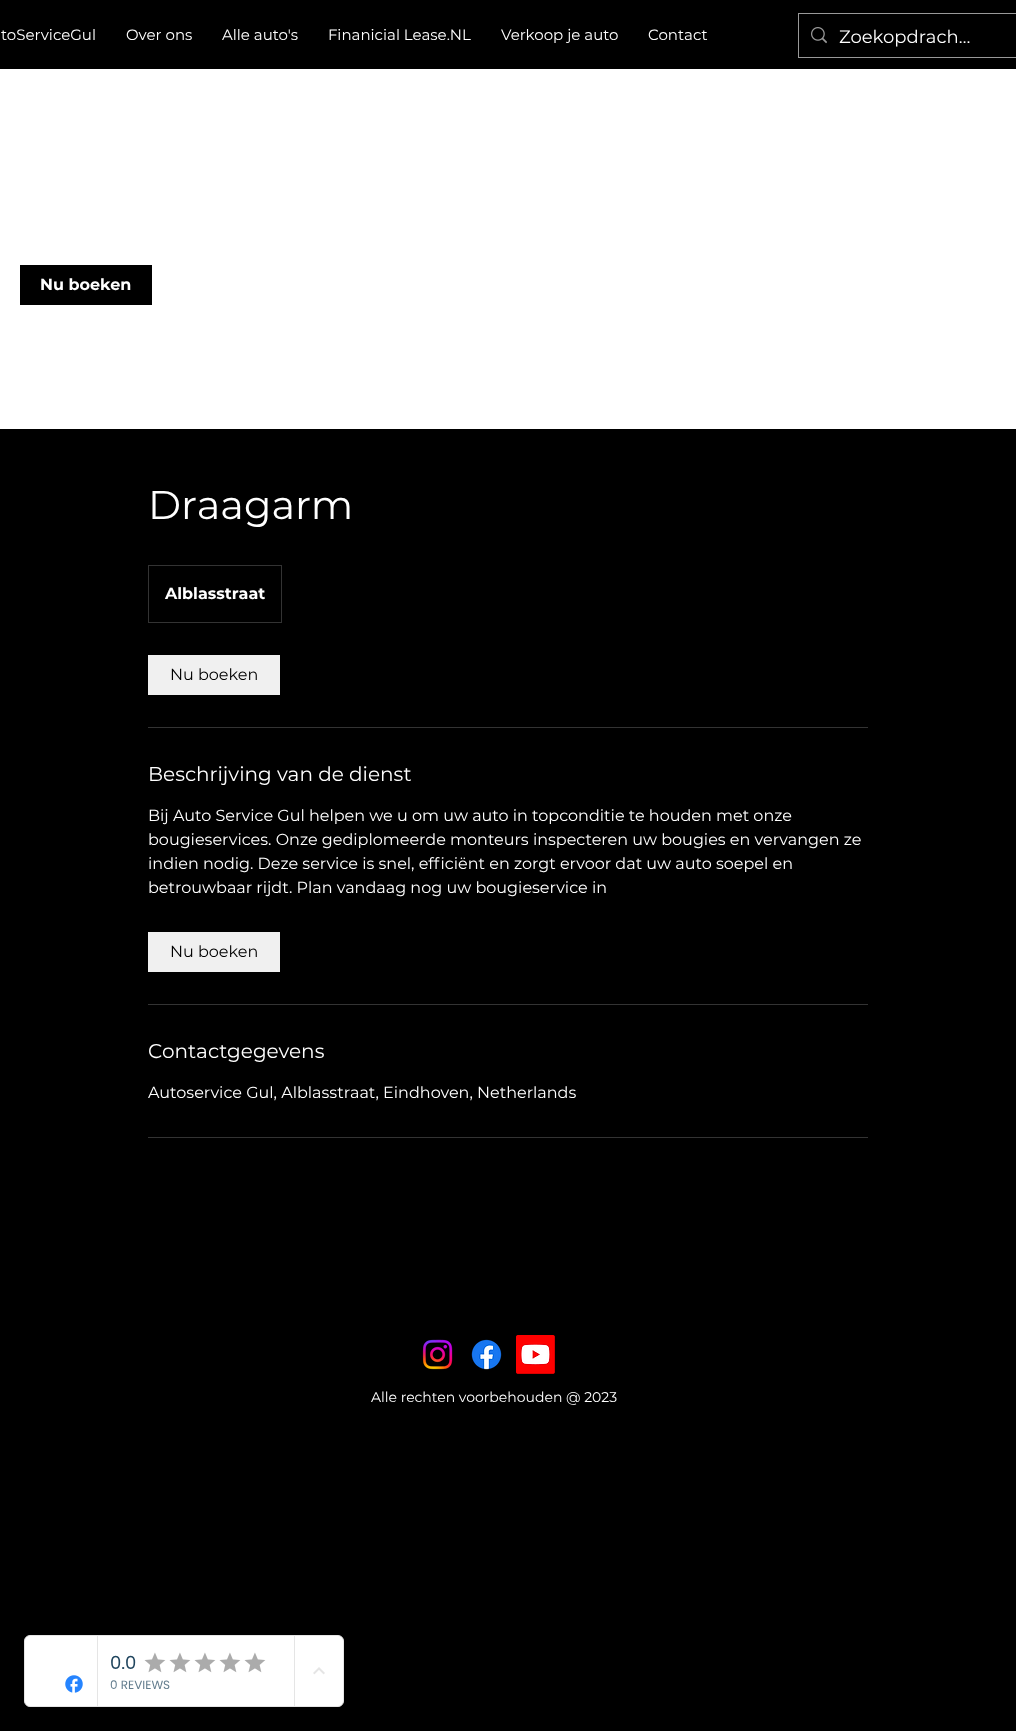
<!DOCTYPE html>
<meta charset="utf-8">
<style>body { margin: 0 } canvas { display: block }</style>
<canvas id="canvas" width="1016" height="1731"></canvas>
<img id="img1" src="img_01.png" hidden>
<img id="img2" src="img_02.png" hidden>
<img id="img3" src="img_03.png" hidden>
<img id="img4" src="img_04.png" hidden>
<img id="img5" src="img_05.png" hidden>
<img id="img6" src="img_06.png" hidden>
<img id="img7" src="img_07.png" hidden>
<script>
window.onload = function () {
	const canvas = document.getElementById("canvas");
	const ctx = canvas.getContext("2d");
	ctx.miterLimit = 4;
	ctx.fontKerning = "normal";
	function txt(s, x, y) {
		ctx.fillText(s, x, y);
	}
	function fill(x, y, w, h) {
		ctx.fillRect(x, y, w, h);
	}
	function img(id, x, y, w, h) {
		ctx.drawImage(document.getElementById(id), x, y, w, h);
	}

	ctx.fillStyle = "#000000";
	fill(0, 0, 1016, 1731);
	ctx.strokeStyle = "#999999";
	ctx.strokeRect(798.5, 13.5, 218, 44);
	img("img1", 811, 27, 16, 17);
	ctx.fillStyle = "#FFFFFF";
	fill(0, 69, 1016, 360);
	ctx.fillStyle = "#000000";
	fill(20, 265, 132, 40);
	ctx.strokeStyle = "#333333";
	ctx.strokeRect(148.5, 565.5, 133, 57);
	ctx.fillStyle = "#F0F0F0";
	fill(148, 655, 132, 40);
	ctx.fillStyle = "#333333";
	fill(148, 727, 720, 1);
	ctx.fillStyle = "#F0F0F0";
	fill(148, 932, 132, 40);
	ctx.fillStyle = "#333333";
	fill(148, 1004, 720, 1);
	fill(148, 1137, 720, 1);
	img("img2", 422, 1339, 31, 31);
	img("img3", 471, 1339, 31, 31);
	img("img4", 516, 1335, 39, 39);
	ctx.fillStyle = "#FFFFFF";
	ctx.beginPath();
	ctx.roundRect(24.5, 1635.5, 319, 71, 5.5);
	ctx.fill();
	ctx.strokeStyle = "#E5E5E5";
	ctx.stroke();
	ctx.fillStyle = "#E5E5E5";
	fill(97, 1636, 1, 70);
	img("img5", 65, 1675, 18, 18);
	fill(294, 1636, 1, 70);
	img("img6", 144, 1652, 22, 21);
	img("img6", 169, 1652, 22, 21);
	img("img6", 194, 1652, 22, 21);
	img("img6", 219, 1652, 22, 21);
	img("img6", 244, 1652, 22, 21);
	img("img7", 313, 1667, 12, 8);
	ctx.font = "15px Montserrat";
	ctx.fillStyle = "#FFFFFF";
	txt("toServiceGul", 1, 40);
	txt("Over ons", 126, 40);
	txt("Alle auto's", 222, 40);
	txt("Finanicial Lease.NL", 328, 40);
	txt("Verkoop je auto", 501, 40);
	txt("Contact", 648, 40);
	ctx.font = "18px Montserrat";
	txt("Zoekopdrach…", 839, 43);
	ctx.font = "bold 16px Montserrat";
	txt("Nu boeken", 40, 290);
	ctx.font = "40px Montserrat";
	txt("Draagarm", 148, 519);
	ctx.font = "bold 16px Montserrat";
	txt("Alblasstraat", 165, 599);
	ctx.font = "16px Montserrat";
	ctx.fillStyle = "#000000";
	txt("Nu boeken", 170, 680);
	ctx.font = "20px Montserrat";
	ctx.fillStyle = "#FFFFFF";
	txt("Beschrijving van de dienst", 148, 781);
	ctx.font = "16px Montserrat";
	txt("Bij Auto Service Gul helpen we u om uw auto in topconditie te houden met onze", 148, 821);
	txt("bougieservices. Onze gediplomeerde monteurs inspecteren uw bougies en vervangen ze", 148, 845);
	txt("indien nodig. Deze service is snel, efficiënt en zorgt ervoor dat uw auto soepel en", 148, 869);
	txt("betrouwbaar rijdt. Plan vandaag nog uw bougieservice in", 148, 893);
	ctx.fillStyle = "#000000";
	txt("Nu boeken", 170, 957);
	ctx.font = "20px Montserrat";
	ctx.fillStyle = "#FFFFFF";
	txt("Contactgegevens", 148, 1058);
	ctx.font = "16px Montserrat";
	txt("Autoservice Gul, Alblasstraat, Eindhoven, Netherlands", 148, 1098);
	ctx.font = "14px Montserrat";
	txt("Alle rechten voorbehouden @ 2023", 371, 1402);
	ctx.font = "18px Poppins";
	ctx.fillStyle = "#20455E";
	txt("0.0", 110, 1669);
	ctx.font = "12px Poppins";
	ctx.fillStyle = "#637D8E";
	txt("0 REVIEWS", 110, 1689);
};
</script>
